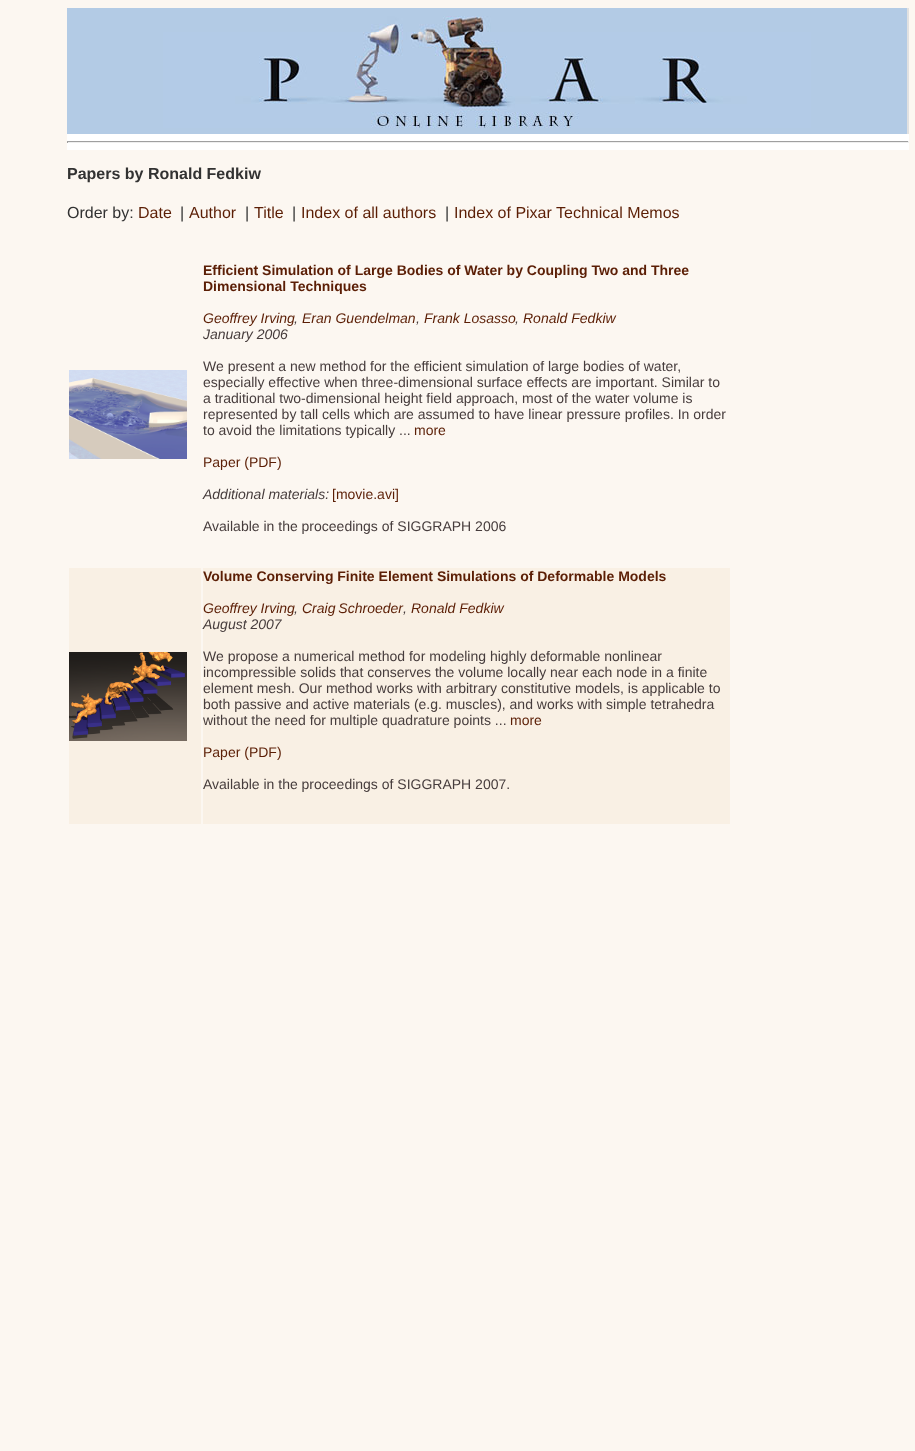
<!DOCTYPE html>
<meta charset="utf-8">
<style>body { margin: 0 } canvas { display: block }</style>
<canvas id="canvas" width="915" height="1451"></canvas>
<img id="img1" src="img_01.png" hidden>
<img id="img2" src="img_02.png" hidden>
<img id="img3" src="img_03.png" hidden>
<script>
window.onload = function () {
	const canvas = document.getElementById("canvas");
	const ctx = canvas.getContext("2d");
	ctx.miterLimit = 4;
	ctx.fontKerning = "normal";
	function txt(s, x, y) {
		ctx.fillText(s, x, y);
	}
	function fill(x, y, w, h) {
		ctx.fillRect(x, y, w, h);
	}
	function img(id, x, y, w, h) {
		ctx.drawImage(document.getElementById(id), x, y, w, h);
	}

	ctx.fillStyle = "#FCF7F1";
	fill(0, 0, 915, 1451);
	ctx.fillStyle = "#E1E1E1";
	fill(907, 8, 2, 126);
	img("img1", 67, 8, 840, 126);
	ctx.fillStyle = "#FFFFFF";
	fill(67, 134, 842, 16);
	ctx.fillStyle = "#9F9F9F";
	fill(67, 141, 842, 1);
	ctx.fillStyle = "#EEEEEE";
	fill(908, 141, 1, 2);
	fill(67, 142, 842, 1);
	ctx.fillStyle = "#9F9F9F";
	fill(67, 141, 1, 2);
	img("img2", 69, 370, 118, 89);
	ctx.fillStyle = "#F9F0E4";
	fill(69, 568, 132, 256);
	img("img3", 69, 652, 118, 89);
	fill(203, 568, 527, 256);
	ctx.font = "bold 16px Liberation Sans";
	ctx.fillStyle = "#323232";
	txt("Papers by Ronald Fedkiw", 67, 179);
	ctx.font = "16px Liberation Sans";
	txt("Order by:", 67, 218);
	ctx.fillStyle = "#5B1E05";
	txt("Date", 138, 218);
	ctx.fillStyle = "#323232";
	txt("|", 180, 218);
	ctx.fillStyle = "#5B1E05";
	txt("Author", 189, 218);
	ctx.fillStyle = "#323232";
	txt("|", 245, 218);
	ctx.fillStyle = "#5B1E05";
	txt("Title", 254, 218);
	ctx.fillStyle = "#323232";
	txt("|", 292, 218);
	ctx.fillStyle = "#5B1E05";
	txt("Index of all authors", 301, 218);
	ctx.fillStyle = "#323232";
	txt("|", 445, 218);
	ctx.fillStyle = "#5B1E05";
	txt("Index of Pixar Technical Memos", 454, 218);
	ctx.font = "bold 14px Liberation Sans";
	txt("Efficient Simulation of Large Bodies of Water by Coupling Two and Three", 203, 275);
	txt("Dimensional Techniques", 203, 291);
	ctx.font = "italic 14px Liberation Sans";
	txt("Geoffrey Irving", 203, 323);
	ctx.fillStyle = "#463C3C";
	txt(",", 294, 323);
	ctx.fillStyle = "#5B1E05";
	txt("Eran Guendelman", 302, 323);
	ctx.fillStyle = "#463C3C";
	txt(",", 416, 323);
	ctx.fillStyle = "#5B1E05";
	txt("Frank Losasso", 424, 323);
	ctx.fillStyle = "#463C3C";
	txt(",", 515, 323);
	ctx.fillStyle = "#5B1E05";
	txt("Ronald Fedkiw", 523, 323);
	ctx.fillStyle = "#463C3C";
	txt("January 2006", 203, 339);
	ctx.font = "14px Liberation Sans";
	txt("We present a new method for the efficient simulation of large bodies of water,", 203, 371);
	txt("especially effective when three-dimensional surface effects are important. Similar to", 203, 387);
	txt("a traditional two-dimensional height field approach, most of the water volume is", 203, 403);
	txt("represented by tall cells which are assumed to have linear pressure profiles. In order", 203, 419);
	txt("to avoid the limitations typically ...", 203, 435);
	ctx.fillStyle = "#5B1E05";
	txt("more", 414, 435);
	txt("Paper (PDF)", 203, 467);
	ctx.font = "italic 14px Liberation Sans";
	ctx.fillStyle = "#463C3C";
	txt("Additional materials:", 203, 499);
	ctx.font = "14px Liberation Sans";
	ctx.fillStyle = "#5B1E05";
	txt("[movie.avi]", 332, 499);
	ctx.fillStyle = "#463C3C";
	txt("Available in the proceedings of SIGGRAPH 2006", 203, 531);
	ctx.font = "bold 14px Liberation Sans";
	ctx.fillStyle = "#5B1E05";
	txt("Volume Conserving Finite Element Simulations of Deformable Models", 203, 581);
	ctx.font = "italic 14px Liberation Sans";
	txt("Geoffrey Irving", 203, 613);
	ctx.fillStyle = "#463C3C";
	txt(",", 294, 613);
	ctx.wordSpacing = "-1px";
	ctx.fillStyle = "#5B1E05";
	txt("Craig Schroeder", 302, 613);
	ctx.wordSpacing = "0px";
	ctx.fillStyle = "#463C3C";
	txt(",", 403, 613);
	ctx.fillStyle = "#5B1E05";
	txt("Ronald Fedkiw", 411, 613);
	ctx.fillStyle = "#463C3C";
	txt("August 2007", 203, 629);
	ctx.font = "14px Liberation Sans";
	txt("We propose a numerical method for modeling highly deformable nonlinear", 203, 661);
	txt("incompressible solids that conserves the volume locally near each node in a finite", 203, 677);
	txt("element mesh. Our method works with arbitrary constitutive models, is applicable to", 203, 693);
	txt("both passive and active materials (e.g. muscles), and works with simple tetrahedra", 203, 709);
	txt("without the need for multiple quadrature points ...", 203, 725);
	ctx.fillStyle = "#5B1E05";
	txt("more", 510, 725);
	txt("Paper (PDF)", 203, 757);
	ctx.fillStyle = "#463C3C";
	txt("Available in the proceedings of SIGGRAPH 2007.", 203, 789);
};
</script>
